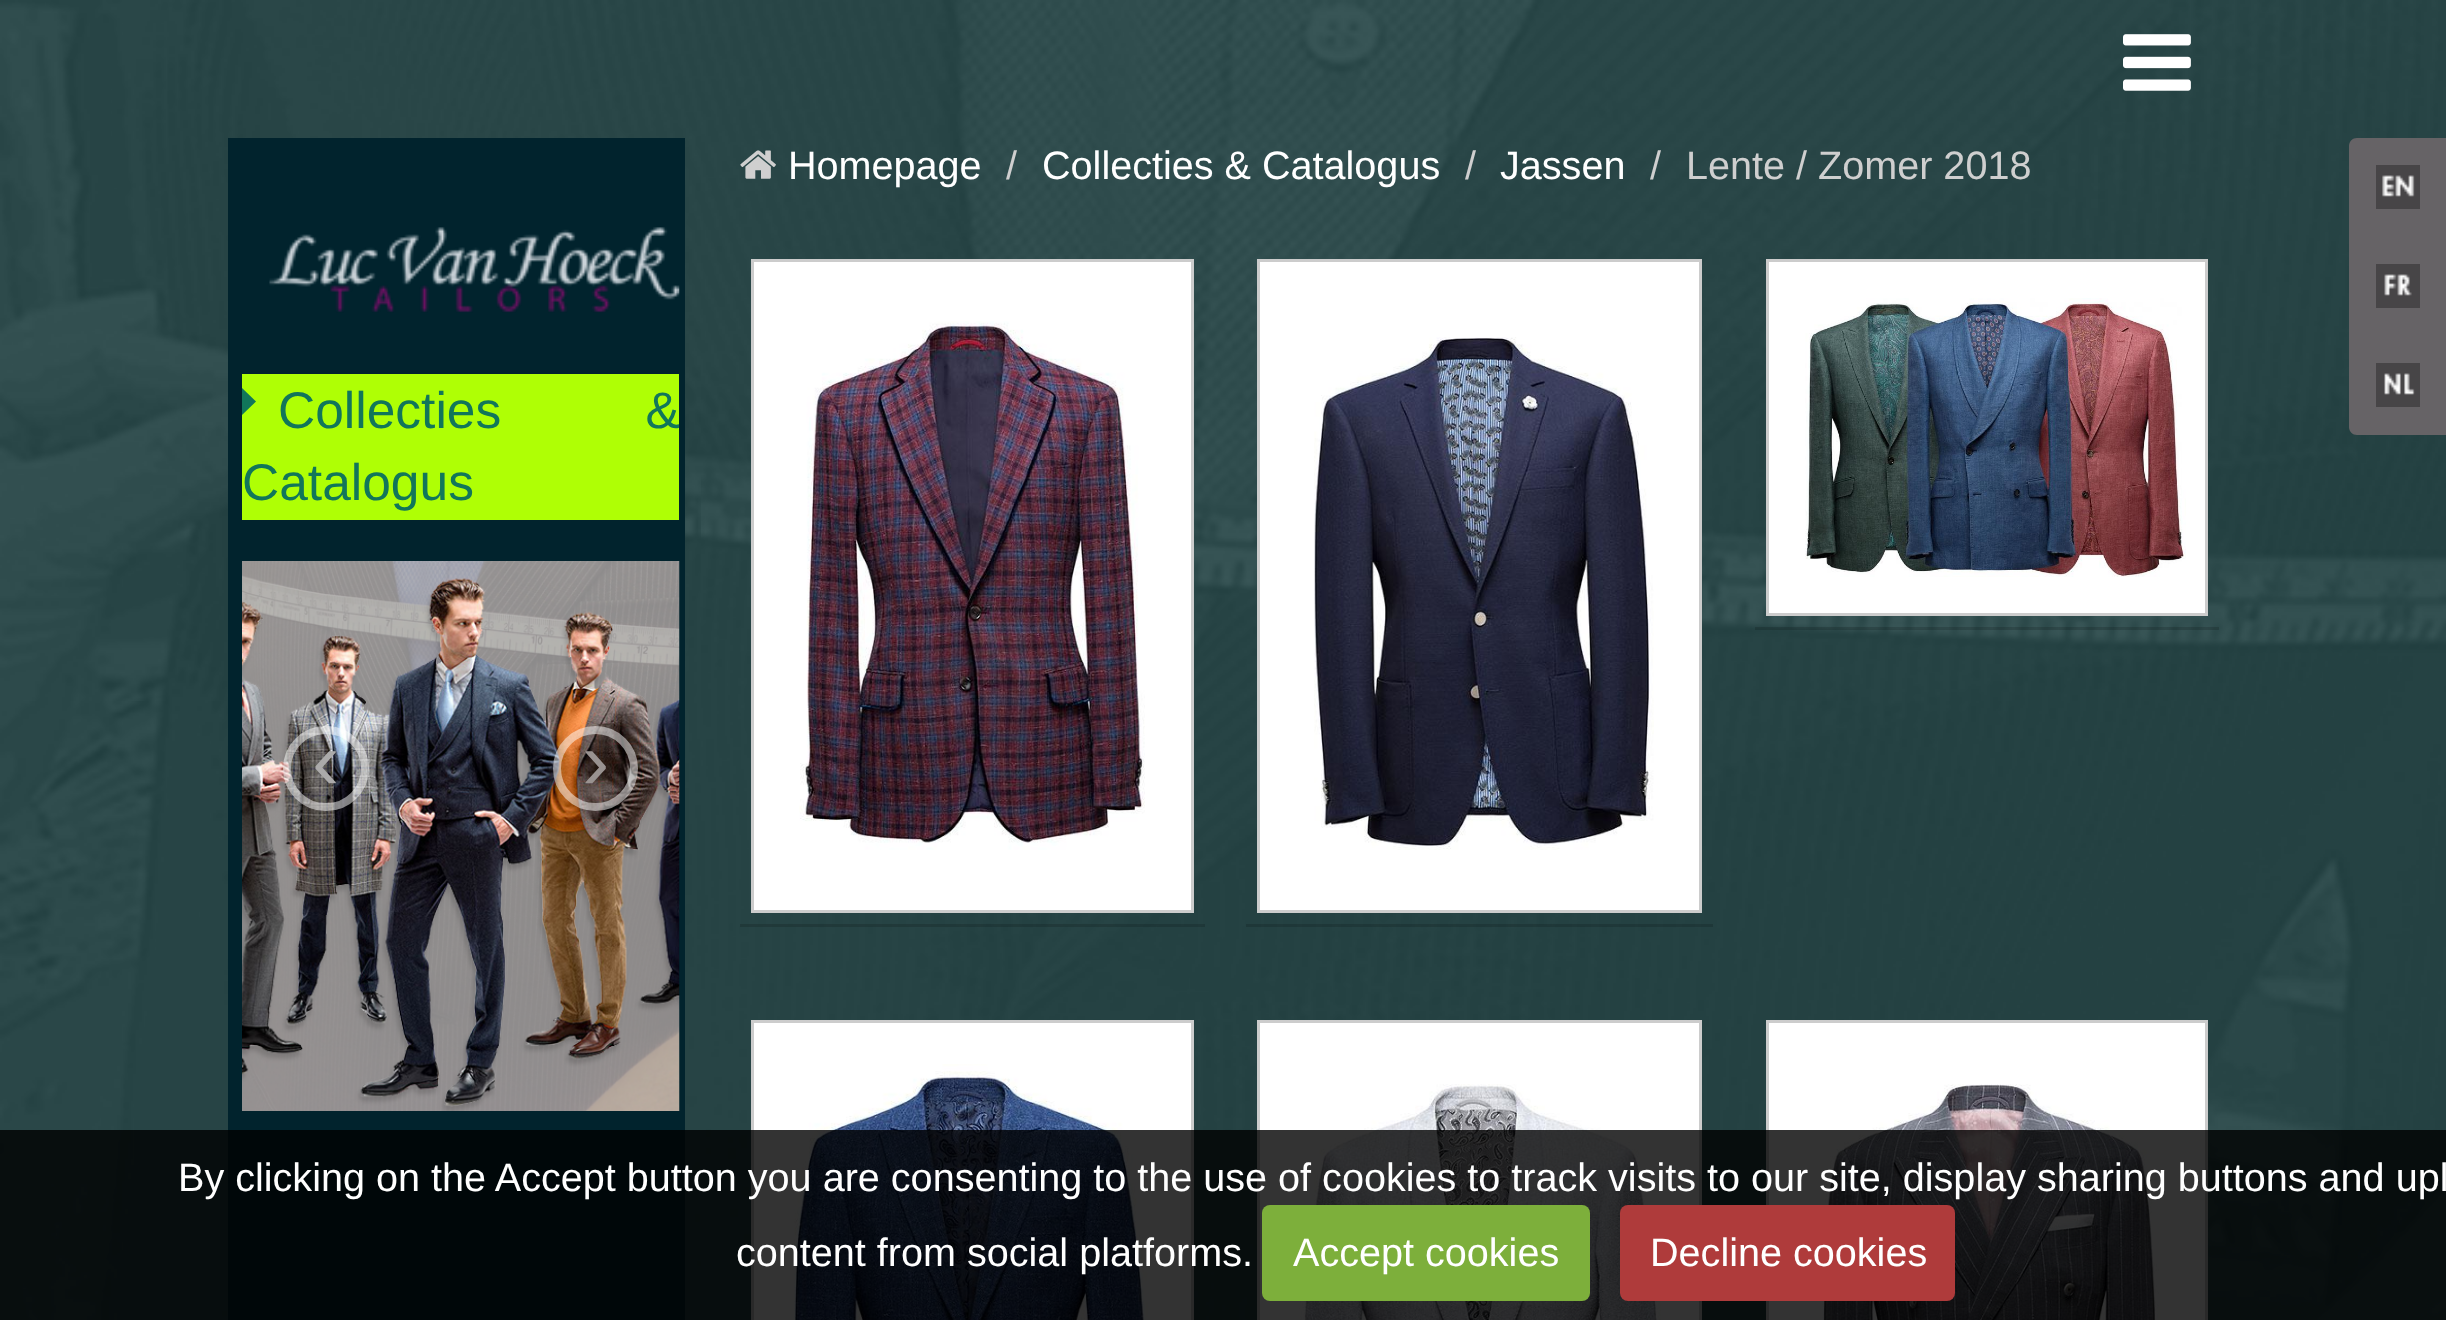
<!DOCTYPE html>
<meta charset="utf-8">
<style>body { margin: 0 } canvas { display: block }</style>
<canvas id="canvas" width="2446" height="1320"></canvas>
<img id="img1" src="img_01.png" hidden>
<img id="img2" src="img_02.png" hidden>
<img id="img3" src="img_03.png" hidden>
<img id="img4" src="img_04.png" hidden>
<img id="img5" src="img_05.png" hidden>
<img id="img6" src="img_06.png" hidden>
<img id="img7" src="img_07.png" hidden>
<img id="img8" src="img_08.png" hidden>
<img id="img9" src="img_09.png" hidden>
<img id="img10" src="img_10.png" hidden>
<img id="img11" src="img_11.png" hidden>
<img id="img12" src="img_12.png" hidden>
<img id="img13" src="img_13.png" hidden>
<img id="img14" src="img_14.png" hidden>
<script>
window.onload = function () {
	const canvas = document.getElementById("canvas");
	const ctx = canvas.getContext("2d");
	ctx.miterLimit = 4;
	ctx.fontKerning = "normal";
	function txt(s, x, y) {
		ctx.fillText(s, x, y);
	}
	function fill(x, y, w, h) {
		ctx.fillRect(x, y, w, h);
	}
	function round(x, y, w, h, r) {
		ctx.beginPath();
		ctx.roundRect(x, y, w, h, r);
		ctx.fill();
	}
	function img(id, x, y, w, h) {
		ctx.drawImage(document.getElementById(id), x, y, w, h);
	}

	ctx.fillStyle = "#1B3C3D";
	fill(0, 0, 2446, 1320);
	img("img1", 0, 0, 2446, 1320);
	img("img2", 2123, 34, 68, 57);
	ctx.fillStyle = "#01232D";
	fill(228, 138, 457, 1182);
	img("img3", 740, 150, 36, 29);
	ctx.fillStyle = "rgba(0, 0, 0, 0.15)";
	fill(740, 924, 465, 3);
	ctx.fillStyle = "#FFFFFF";
	ctx.beginPath();
	ctx.rect(752.5, 260.5, 440, 651);
	ctx.fill();
	ctx.strokeStyle = "#CCCCCC";
	ctx.lineWidth = 3;
	ctx.stroke();
	img("img4", 799, 321, 346, 529);
	ctx.fillStyle = "rgba(0, 0, 0, 0.15)";
	fill(1246, 924, 467, 3);
	ctx.fillStyle = "#FFFFFF";
	ctx.beginPath();
	ctx.rect(1258.5, 260.5, 442, 651);
	ctx.fill();
	ctx.stroke();
	img("img5", 1314, 337, 340, 513);
	ctx.fillStyle = "rgba(0, 0, 0, 0.15)";
	fill(1755, 627, 464, 3);
	ctx.fillStyle = "#FFFFFF";
	ctx.beginPath();
	ctx.rect(1767.5, 260.5, 439, 354);
	ctx.fill();
	ctx.stroke();
	img("img6", 1805, 298, 381, 279);
	ctx.beginPath();
	ctx.rect(752.5, 1021.5, 440, 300);
	ctx.fill();
	ctx.stroke();
	img("img7", 794, 1064, 357, 256);
	ctx.beginPath();
	ctx.rect(1258.5, 1021.5, 442, 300);
	ctx.fill();
	ctx.stroke();
	img("img8", 1299, 1084, 362, 236);
	ctx.beginPath();
	ctx.rect(1767.5, 1021.5, 439, 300);
	ctx.fill();
	ctx.stroke();
	img("img9", 1822, 1084, 338, 236);
	img("img10", 269, 227, 411, 86);
	ctx.fillStyle = "#AFFF05";
	fill(242, 374, 437, 146);
	ctx.fillStyle = "#11765A";
	ctx.beginPath();
	ctx.moveTo(242, 415);
	ctx.lineTo(242, 388);
	ctx.lineTo(256, 401.5);
	ctx.closePath();
	ctx.fill();
	img("img11", 242, 561, 438, 550);
	ctx.beginPath();
	ctx.roundRect(287, 730, 78, 77, 38.5);
	ctx.strokeStyle = "rgba(255, 255, 255, 0.5)";
	ctx.lineWidth = 8;
	ctx.stroke();
	ctx.beginPath();
	ctx.arc(595.5, 768.5, 38.5, 0, Math.PI * 2);
	ctx.stroke();
	ctx.fillStyle = "#666366";
	ctx.beginPath();
	ctx.moveTo(2357, 138);
	ctx.lineTo(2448, 138);
	ctx.lineTo(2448, 237);
	ctx.lineTo(2349, 237);
	ctx.lineTo(2349, 146);
	ctx.bezierCurveTo(2349, 141.5, 2352.5, 138, 2357, 138);
	ctx.closePath();
	ctx.fill();
	img("img12", 2376, 165, 44, 44);
	fill(2349, 237, 97, 99);
	img("img13", 2376, 264, 44, 44);
	ctx.beginPath();
	ctx.moveTo(2349, 336);
	ctx.lineTo(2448, 336);
	ctx.lineTo(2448, 435);
	ctx.lineTo(2357, 435);
	ctx.bezierCurveTo(2352.5, 435, 2349, 431.5, 2349, 427);
	ctx.closePath();
	ctx.fill();
	img("img14", 2376, 363, 44, 44);
	ctx.fillStyle = "rgba(0, 0, 0, 0.8)";
	fill(0, 1130, 2446, 190);
	ctx.fillStyle = "#7DAF3B";
	round(1262, 1205, 328, 96, 8);
	ctx.fillStyle = "#AF3B3B";
	round(1620, 1205, 335, 96, 8);
	ctx.font = "39.6px Liberation Sans";
	ctx.fillStyle = "#FFFFFF";
	txt("Homepage", 788, 179);
	ctx.fillStyle = "#CFCFCF";
	txt("/", 1006, 179);
	ctx.fillStyle = "#FFFFFF";
	txt("Collecties & Catalogus", 1042, 179);
	ctx.fillStyle = "#CFCFCF";
	txt("/", 1465, 179);
	ctx.fillStyle = "#FFFFFF";
	txt("Jassen", 1500, 179);
	ctx.fillStyle = "#CFCFCF";
	txt("/", 1650, 179);
	txt("Lente / Zomer 2018", 1686, 179);
	ctx.wordSpacing = "130px";
	ctx.font = "51.5px Liberation Sans";
	ctx.fillStyle = "#11765A";
	txt("Collecties &", 278, 428);
	ctx.wordSpacing = "0px";
	txt("Catalogus", 242, 500);
	ctx.font = "82px Liberation Sans";
	ctx.fillStyle = "#ABAAAA";
	txt("‹", 312, 789);
	ctx.fillStyle = "#999290";
	txt("›", 582, 789);
	ctx.font = "39.6px Liberation Sans";
	ctx.fillStyle = "#FFFFFF";
	txt("By clicking on the Accept button you are consenting to the use of cookies to track visits to our site, display sharing buttons and upl", 178, 1191);
	txt("content from social platforms.", 736, 1266);
	txt("Accept cookies", 1293, 1266);
	txt("Decline cookies", 1650, 1266);
};
</script>
